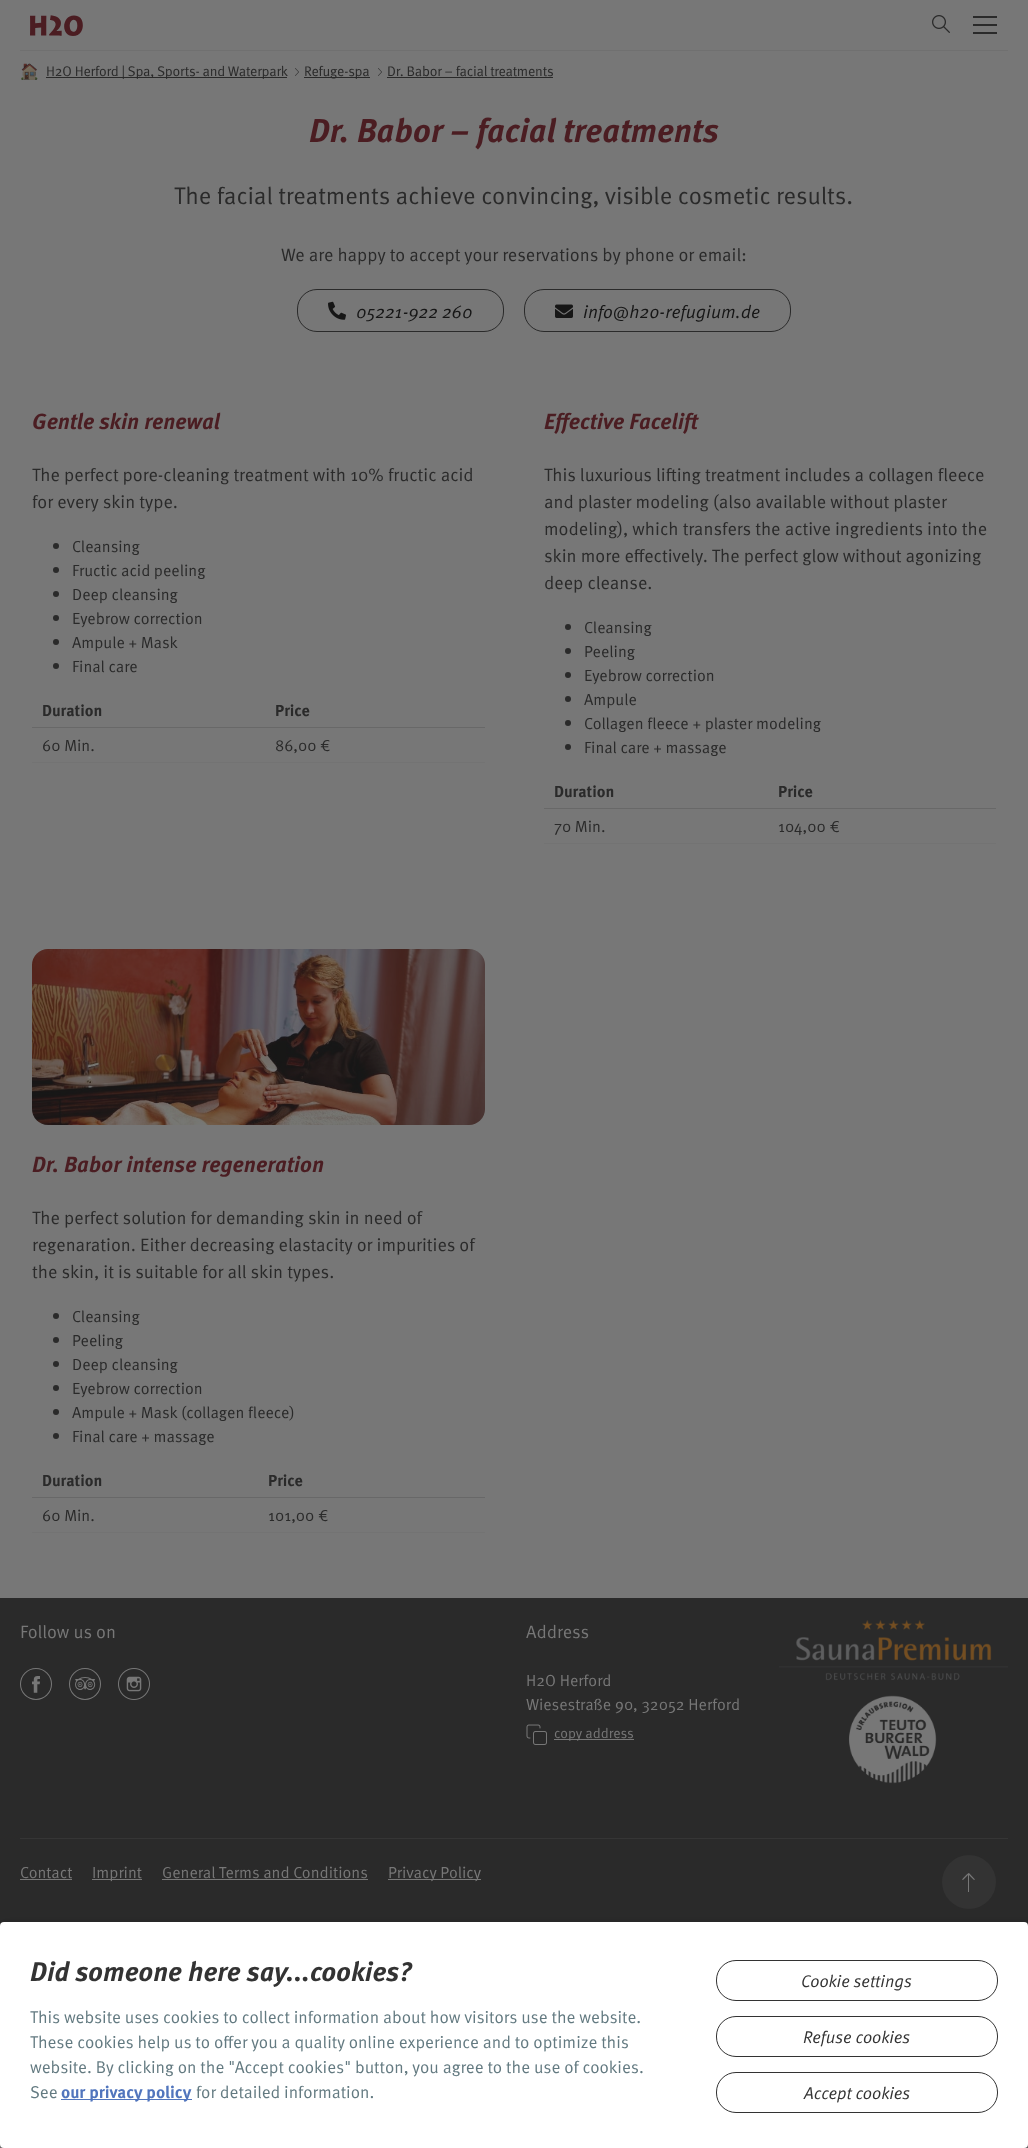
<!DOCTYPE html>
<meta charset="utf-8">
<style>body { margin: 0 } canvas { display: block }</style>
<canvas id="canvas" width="1028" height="2148"></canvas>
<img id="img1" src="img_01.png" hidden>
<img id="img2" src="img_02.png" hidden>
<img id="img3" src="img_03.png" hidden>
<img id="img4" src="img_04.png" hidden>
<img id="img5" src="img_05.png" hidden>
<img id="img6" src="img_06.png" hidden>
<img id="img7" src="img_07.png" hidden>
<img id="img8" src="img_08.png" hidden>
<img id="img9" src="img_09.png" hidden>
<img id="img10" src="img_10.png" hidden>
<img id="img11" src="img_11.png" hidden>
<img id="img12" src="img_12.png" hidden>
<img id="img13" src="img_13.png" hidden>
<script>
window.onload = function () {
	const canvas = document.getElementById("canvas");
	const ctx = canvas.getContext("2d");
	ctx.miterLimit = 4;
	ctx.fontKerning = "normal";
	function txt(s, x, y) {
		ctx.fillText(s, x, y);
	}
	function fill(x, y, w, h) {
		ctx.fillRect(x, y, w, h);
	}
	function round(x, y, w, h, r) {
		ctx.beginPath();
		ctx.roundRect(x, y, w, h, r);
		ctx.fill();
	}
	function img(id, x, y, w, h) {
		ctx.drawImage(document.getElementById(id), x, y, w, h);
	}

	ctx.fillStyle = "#777777";
	fill(0, 0, 1028, 2148);
	img("img1", 30, 15, 53, 21);
	img("img2", 932, 15, 18, 18);
	ctx.fillStyle = "#2A2A2A";
	fill(973, 24, 24, 2);
	fill(973, 16, 24, 2);
	fill(973, 32, 24, 2);
	ctx.fillStyle = "#707070";
	fill(20, 50, 988, 1);
	img("img3", 21, 63, 17, 17);
	ctx.fillStyle = "#2A2A2A";
	fill(46, 77, 241, 1);
	img("img4", 295, 68, 4, 8);
	fill(304, 77, 66, 1);
	img("img4", 378, 68, 4, 8);
	fill(387, 77, 166, 1);
	ctx.beginPath();
	ctx.roundRect(297.5, 289.5, 206, 42, 19.5);
	ctx.strokeStyle = "#2A2A2A";
	ctx.stroke();
	img("img5", 328, 301, 18, 19);
	ctx.beginPath();
	ctx.roundRect(524.5, 289.5, 266, 42, 19.5);
	ctx.stroke();
	img("img6", 555, 304, 18, 14);
	ctx.beginPath();
	ctx.arc(56, 546, 3, 0, Math.PI * 2);
	ctx.fill();
	ctx.beginPath();
	ctx.arc(56, 570, 3, 0, Math.PI * 2);
	ctx.fill();
	ctx.beginPath();
	ctx.arc(56, 594, 3, 0, Math.PI * 2);
	ctx.fill();
	ctx.beginPath();
	ctx.arc(56, 618, 3, 0, Math.PI * 2);
	ctx.fill();
	ctx.beginPath();
	ctx.arc(56, 642, 3, 0, Math.PI * 2);
	ctx.fill();
	ctx.beginPath();
	ctx.arc(56, 666, 3, 0, Math.PI * 2);
	ctx.fill();
	ctx.fillStyle = "#686868";
	fill(32, 727, 453, 1);
	ctx.fillStyle = "#737373";
	fill(32, 762, 453, 1);
	ctx.fillStyle = "#2A2A2A";
	ctx.beginPath();
	ctx.arc(568, 627, 3, 0, Math.PI * 2);
	ctx.fill();
	ctx.beginPath();
	ctx.arc(568, 651, 3, 0, Math.PI * 2);
	ctx.fill();
	ctx.beginPath();
	ctx.arc(568, 675, 3, 0, Math.PI * 2);
	ctx.fill();
	ctx.beginPath();
	ctx.arc(568, 699, 3, 0, Math.PI * 2);
	ctx.fill();
	ctx.beginPath();
	ctx.arc(568, 723, 3, 0, Math.PI * 2);
	ctx.fill();
	ctx.beginPath();
	ctx.arc(568, 747, 3, 0, Math.PI * 2);
	ctx.fill();
	ctx.fillStyle = "#686868";
	fill(544, 808, 452, 1);
	ctx.fillStyle = "#737373";
	fill(544, 843, 452, 1);
	img("img7", 32, 949, 453, 176);
	ctx.fillStyle = "#2A2A2A";
	ctx.beginPath();
	ctx.arc(56, 1316, 3, 0, Math.PI * 2);
	ctx.fill();
	ctx.beginPath();
	ctx.arc(56, 1340, 3, 0, Math.PI * 2);
	ctx.fill();
	ctx.beginPath();
	ctx.arc(56, 1364, 3, 0, Math.PI * 2);
	ctx.fill();
	ctx.beginPath();
	ctx.arc(56, 1388, 3, 0, Math.PI * 2);
	ctx.fill();
	ctx.beginPath();
	ctx.arc(56, 1412, 3, 0, Math.PI * 2);
	ctx.fill();
	ctx.beginPath();
	ctx.arc(56, 1436, 3, 0, Math.PI * 2);
	ctx.fill();
	ctx.fillStyle = "#686868";
	fill(32, 1497, 453, 1);
	ctx.fillStyle = "#737373";
	fill(32, 1532, 453, 1);
	ctx.fillStyle = "#2A2A2A";
	fill(0, 1598, 1028, 328);
	ctx.fillStyle = "#353535";
	fill(20, 1838, 988, 1);
	img("img8", 20, 1668, 32, 32);
	img("img9", 69, 1668, 32, 32);
	img("img10", 118, 1668, 32, 32);
	img("img11", 526, 1724, 21, 21);
	ctx.fillStyle = "#777777";
	fill(554, 1739, 80, 1);
	img("img12", 779, 1620, 229, 61);
	img("img13", 848, 1695, 89, 89);
	fill(20, 1879, 52, 1);
	fill(92, 1879, 50, 1);
	fill(162, 1879, 206, 1);
	fill(388, 1879, 93, 1);
	ctx.fillStyle = "#333333";
	ctx.beginPath();
	ctx.arc(969, 1882, 27, 0, Math.PI * 2);
	ctx.fill();
	ctx.fillStyle = "#777777";
	ctx.beginPath();
	ctx.moveTo(969, 1873);
	ctx.lineTo(975, 1879.5);
	ctx.lineTo(974, 1880);
	ctx.lineTo(969, 1875);
	ctx.lineTo(969, 1892);
	ctx.lineTo(968, 1892);
	ctx.lineTo(968, 1875);
	ctx.lineTo(963, 1880);
	ctx.lineTo(962, 1879.5);
	ctx.bezierCurveTo(963, 1878.5, 968, 1872.5, 969, 1873);
	ctx.closePath();
	ctx.fill("evenodd");
	ctx.fillStyle = "rgba(0, 0, 0, 0.19)";
	ctx.filter = "blur(5px)";
	ctx.beginPath();
	ctx.roundRect(5, 1927, 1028, 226, 4);
	ctx.fill();
	ctx.filter = "none";
	ctx.fillStyle = "rgba(0, 0, 0, 0.2)";
	ctx.filter = "blur(3px)";
	ctx.beginPath();
	ctx.roundRect(0, 1926, 1028, 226, 4);
	ctx.fill();
	ctx.filter = "none";
	ctx.fillStyle = "#FFFFFF";
	round(0, 1922, 1028, 226, 4);
	ctx.fillStyle = "#5175BD";
	fill(61, 2099, 131, 1);
	ctx.beginPath();
	ctx.roundRect(716.5, 1960.5, 281, 40, 19.5);
	ctx.strokeStyle = "#333333";
	ctx.stroke();
	ctx.beginPath();
	ctx.roundRect(716.5, 2016.5, 281, 40, 19.5);
	ctx.stroke();
	ctx.beginPath();
	ctx.roundRect(716.5, 2072.5, 281, 40, 19.5);
	ctx.stroke();
	ctx.letterSpacing = "-0.2px";
	ctx.font = "14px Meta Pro";
	ctx.fillStyle = "#2A2A2A";
	txt("H2O Herford | Spa, Sports- and Waterpark", 46, 76);
	txt("Refuge-spa", 304, 76);
	txt("Dr. Babor – facial treatments", 387, 76);
	ctx.letterSpacing = "0px";
	ctx.font = "italic bold 33px Meta Pro";
	ctx.fillStyle = "#4B1D22";
	txt("Dr. Babor – facial treatments", 309, 142);
	ctx.font = "24px Meta Pro";
	ctx.fillStyle = "#2A2A2A";
	txt("The facial treatments achieve convincing, visible cosmetic results.", 174, 204);
	ctx.font = "18px Meta Pro";
	txt("We are happy to accept your reservations by phone or email:", 281, 261);
	ctx.font = "italic 18px Meta Pro";
	ctx.fillStyle = "#161616";
	txt("05221-922 260", 356, 318);
	txt("info@h2o-refugium.de", 583, 318);
	ctx.font = "italic bold 22px Meta Pro";
	ctx.fillStyle = "#4B1D22";
	txt("Gentle skin renewal", 32, 429);
	ctx.font = "18px Meta Pro";
	ctx.fillStyle = "#2A2A2A";
	txt("The perfect pore-cleaning treatment with 10% fructic acid", 32, 481);
	txt("for every skin type.", 32, 508);
	ctx.font = "16px Meta Pro";
	txt("Cleansing", 72, 552);
	txt("Fructic acid peeling", 72, 576);
	txt("Deep cleansing", 72, 600);
	txt("Eyebrow correction", 72, 624);
	txt("Ampule + Mask", 72, 648);
	txt("Final care", 72, 672);
	ctx.font = "bold 16px Meta Pro";
	txt("Duration", 42, 716);
	txt("Price", 275, 716);
	ctx.font = "16px Meta Pro";
	txt("60 Min.", 42, 751);
	txt("86,00 €", 275, 751);
	ctx.font = "italic bold 22px Meta Pro";
	ctx.fillStyle = "#4B1D22";
	txt("Effective Facelift", 544, 429);
	ctx.font = "18px Meta Pro";
	ctx.fillStyle = "#2A2A2A";
	txt("This luxurious lifting treatment includes a collagen fleece", 544, 481);
	txt("and plaster modeling (also available without plaster", 544, 508);
	txt("modeling), which transfers the active ingredients into the", 544, 535);
	txt("skin more effectively. The perfect glow without agonizing", 544, 562);
	txt("deep cleanse.", 544, 589);
	ctx.font = "16px Meta Pro";
	txt("Cleansing", 584, 633);
	txt("Peeling", 584, 657);
	txt("Eyebrow correction", 584, 681);
	txt("Ampule", 584, 705);
	txt("Collagen fleece + plaster modeling", 584, 729);
	txt("Final care + massage", 584, 753);
	ctx.font = "bold 16px Meta Pro";
	txt("Duration", 554, 797);
	txt("Price", 778, 797);
	ctx.font = "16px Meta Pro";
	txt("70 Min.", 554, 832);
	txt("104,00 €", 778, 832);
	ctx.font = "italic bold 22px Meta Pro";
	ctx.fillStyle = "#4B1D22";
	txt("Dr. Babor intense regeneration", 32, 1172);
	ctx.font = "18px Meta Pro";
	ctx.fillStyle = "#2A2A2A";
	txt("The perfect solution for demanding skin in need of", 32, 1224);
	txt("regenaration. Either decreasing elastacity or impurities of", 32, 1251);
	txt("the skin, it is suitable for all skin types.", 32, 1278);
	ctx.font = "16px Meta Pro";
	txt("Cleansing", 72, 1322);
	txt("Peeling", 72, 1346);
	txt("Deep cleansing", 72, 1370);
	txt("Eyebrow correction", 72, 1394);
	txt("Ampule + Mask (collagen fleece)", 72, 1418);
	txt("Final care + massage", 72, 1442);
	ctx.font = "bold 16px Meta Pro";
	txt("Duration", 42, 1486);
	txt("Price", 268, 1486);
	ctx.font = "16px Meta Pro";
	txt("60 Min.", 42, 1521);
	txt("101,00 €", 268, 1521);
	ctx.font = "18px Meta Pro";
	ctx.fillStyle = "#777777";
	txt("Follow us on", 20, 1638);
	txt("Address", 526, 1638);
	ctx.font = "16px Meta Pro";
	txt("H2O Herford", 526, 1686);
	txt("Wiesestraße 90, 32052 Herford", 526, 1710);
	ctx.font = "14px Meta Pro";
	txt("copy address", 554, 1738);
	ctx.font = "16px Meta Pro";
	txt("Contact", 20, 1878);
	txt("Imprint", 92, 1878);
	txt("General Terms and Conditions", 162, 1878);
	txt("Privacy Policy", 388, 1878);
	ctx.font = "italic bold 27px Meta Pro";
	ctx.fillStyle = "#333333";
	txt("Did someone here say...cookies?", 30, 1981);
	ctx.font = "17px Meta Pro";
	ctx.fillStyle = "#637A81";
	txt("This website uses cookies to collect information about how visitors use the website.", 30, 2023);
	txt("These cookies help us to offer you a quality online experience and to optimize this", 30, 2048);
	txt("website. By clicking on the \"Accept cookies\" button, you agree to the use of cookies.", 30, 2073);
	txt("See", 30, 2098);
	ctx.font = "bold 17px Meta Pro";
	ctx.fillStyle = "#5175BD";
	txt("our privacy policy", 61, 2098);
	ctx.font = "17px Meta Pro";
	ctx.fillStyle = "#637A81";
	txt("for detailed information.", 196, 2098);
	ctx.font = "italic 17px Meta Pro";
	ctx.fillStyle = "#333333";
	txt("Cookie settings", 801, 1987);
	txt("Refuse cookies", 803, 2043);
	txt("Accept cookies", 804, 2099);
};
</script>
